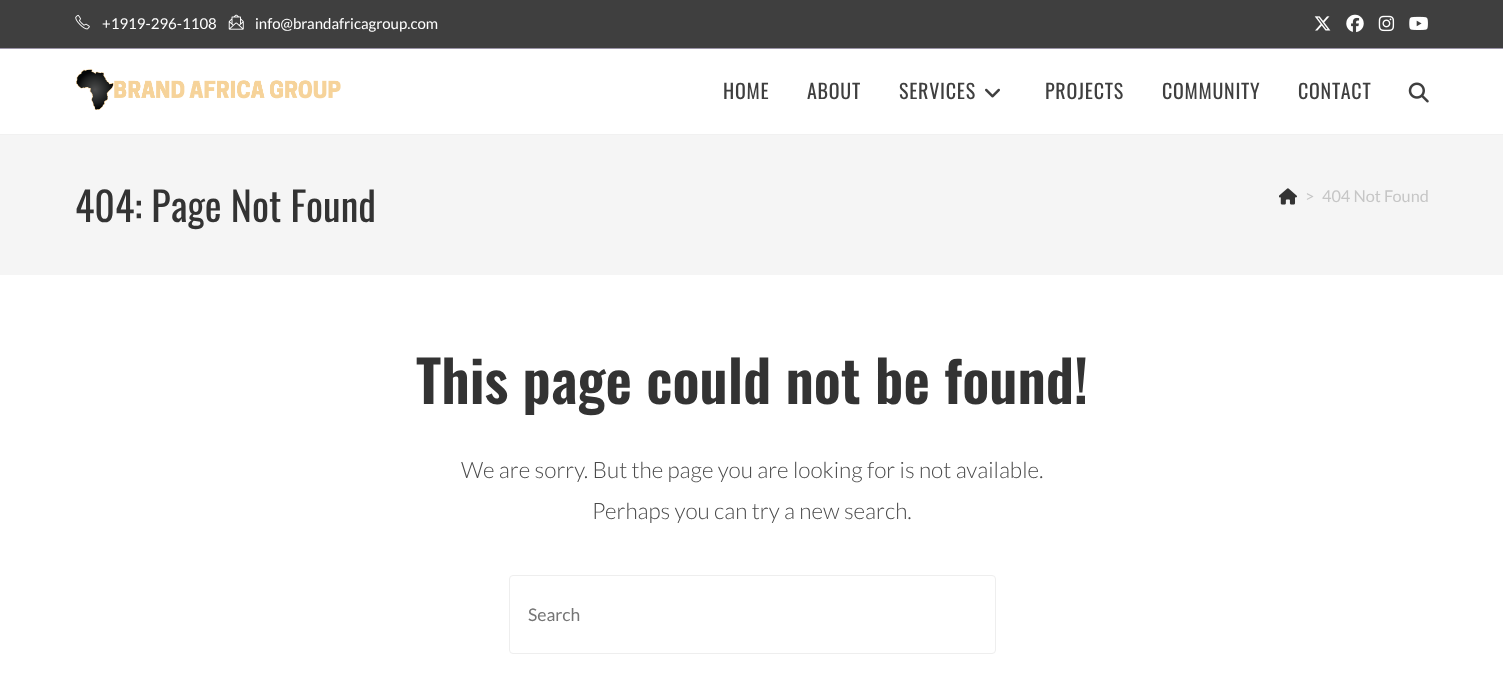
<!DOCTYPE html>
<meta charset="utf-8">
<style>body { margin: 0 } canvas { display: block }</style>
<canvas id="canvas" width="1503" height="676"></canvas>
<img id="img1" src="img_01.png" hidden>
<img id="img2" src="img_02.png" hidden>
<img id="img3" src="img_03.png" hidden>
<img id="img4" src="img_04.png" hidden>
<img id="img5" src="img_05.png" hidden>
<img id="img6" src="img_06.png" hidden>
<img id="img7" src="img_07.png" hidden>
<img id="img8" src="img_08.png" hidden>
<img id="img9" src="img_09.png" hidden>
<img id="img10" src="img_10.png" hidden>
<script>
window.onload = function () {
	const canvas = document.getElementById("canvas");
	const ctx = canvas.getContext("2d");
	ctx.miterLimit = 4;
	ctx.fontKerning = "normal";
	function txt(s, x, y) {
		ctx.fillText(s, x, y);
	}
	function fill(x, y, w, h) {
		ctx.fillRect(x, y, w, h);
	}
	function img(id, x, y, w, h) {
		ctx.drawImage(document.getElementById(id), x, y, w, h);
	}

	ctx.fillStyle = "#FFFFFF";
	fill(0, 0, 1503, 676);
	ctx.fillStyle = "#3F3F3F";
	fill(0, 0, 1503, 48);
	ctx.fillStyle = "#9B94A8";
	fill(0, 48, 1503, 1);
	img("img1", 75, 14, 15, 16);
	img("img2", 228, 14, 16, 16);
	img("img3", 1314, 16, 17, 15);
	img("img4", 1346, 14, 18, 19);
	img("img5", 1378, 15, 17, 17);
	img("img6", 1409, 16, 19, 14);
	ctx.fillStyle = "#F1F1F1";
	fill(0, 134, 1503, 1);
	img("img7", 76, 69, 265, 41);
	img("img8", 985, 88, 15, 10);
	img("img9", 1408, 82, 21, 21);
	ctx.fillStyle = "#F5F5F5";
	fill(0, 135, 1503, 140);
	img("img10", 1279, 188, 18, 17);
	ctx.beginPath();
	ctx.roundRect(509.5, 575.5, 486, 78, 3.5);
	ctx.strokeStyle = "#EEEEEE";
	ctx.stroke();
	ctx.font = "15px Lato";
	ctx.fillStyle = "#FFFFFF";
	txt("+1919-296-1108", 102, 29);
	txt("info@brandafricagroup.com", 255, 29);
	ctx.letterSpacing = "0.75px";
	ctx.font = "20px Oswald";
	ctx.fillStyle = "#3F3F3F";
	txt("HOME", 723, 99);
	txt("ABOUT", 807, 99);
	txt("SERVICES", 899, 99);
	txt("PROJECTS", 1045, 99);
	txt("COMMUNITY", 1162, 99);
	txt("CONTACT", 1298, 99);
	ctx.letterSpacing = "0px";
	ctx.font = "40px Oswald";
	ctx.fillStyle = "#333333";
	txt("404: Page Not Found", 75, 222);
	ctx.font = "16.25px Lato";
	ctx.fillStyle = "#C6C6C6";
	txt(">", 1305, 202);
	txt("404 Not Found", 1322, 202);
	ctx.font = "600 57.5px Oswald";
	ctx.fillStyle = "#333333";
	txt("This page could not be found!", 416, 404);
	ctx.font = "300 22.5px Lato";
	ctx.fillStyle = "#4A4A4A";
	txt("We are sorry. But the page you are looking for is not available.", 461, 478);
	txt("Perhaps you can try a new search.", 592, 519);
	ctx.font = "17.5px Lato";
	ctx.fillStyle = "#757575";
	txt("Search", 528, 621);
};
</script>
